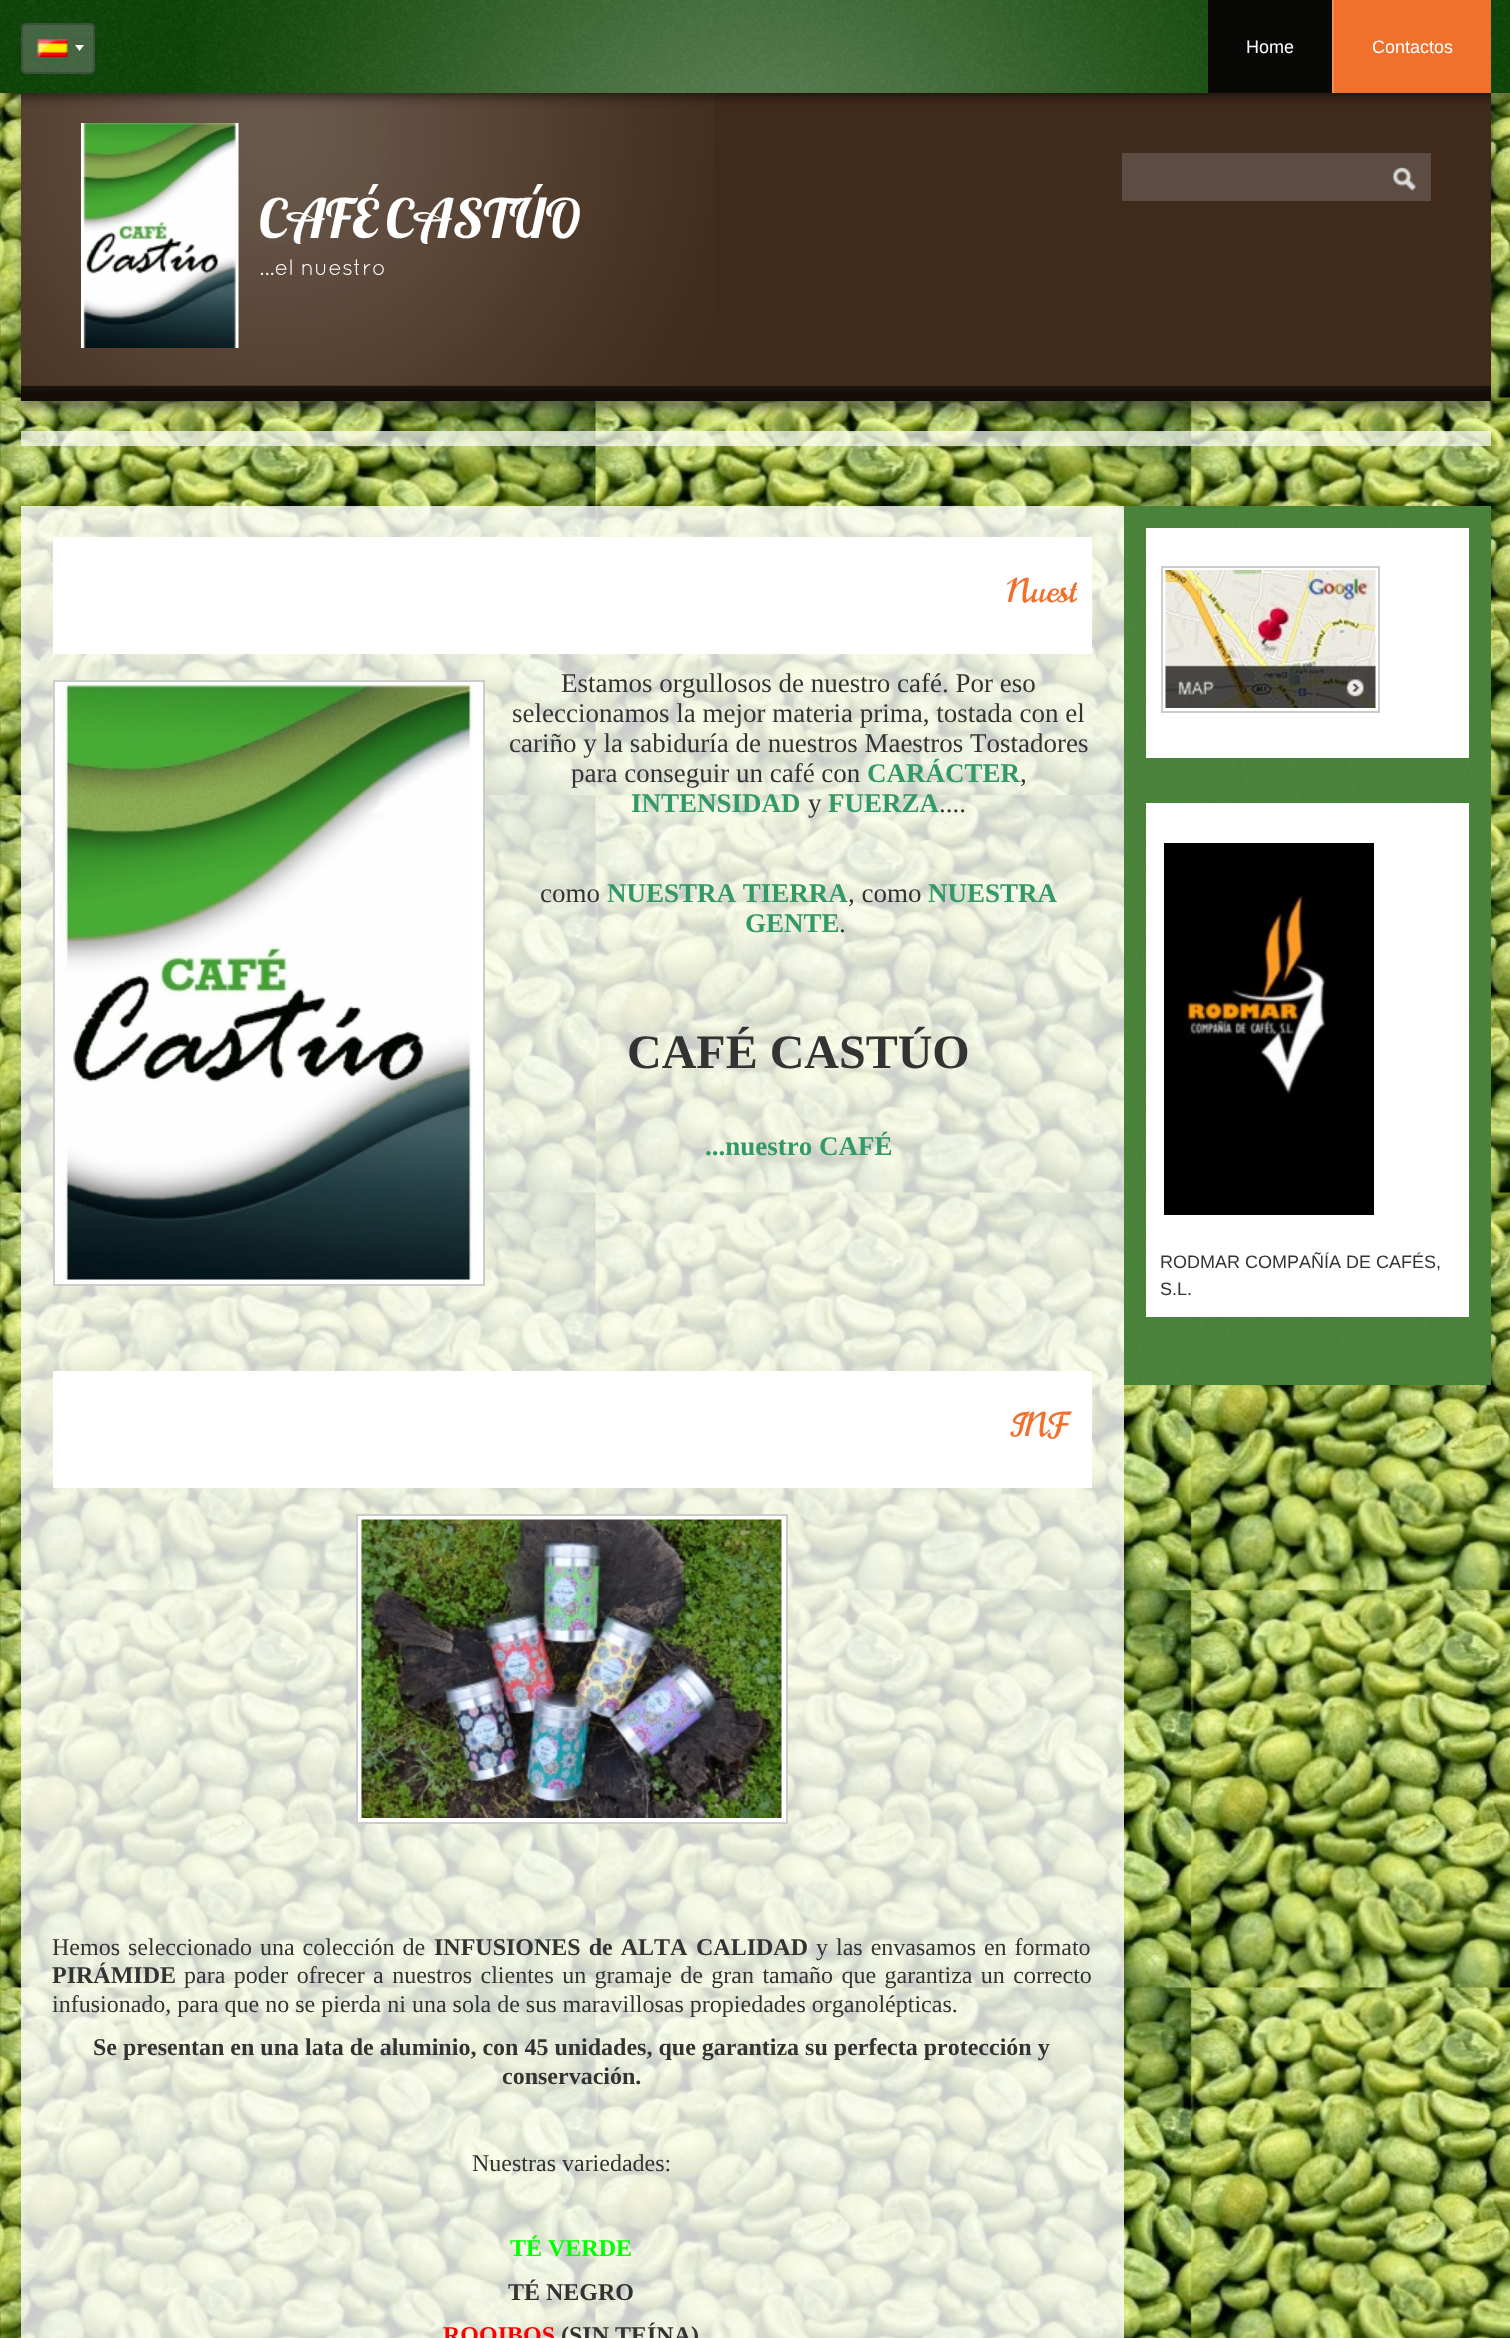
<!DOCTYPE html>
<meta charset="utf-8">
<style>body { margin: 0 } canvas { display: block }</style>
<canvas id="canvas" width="1510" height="2338"></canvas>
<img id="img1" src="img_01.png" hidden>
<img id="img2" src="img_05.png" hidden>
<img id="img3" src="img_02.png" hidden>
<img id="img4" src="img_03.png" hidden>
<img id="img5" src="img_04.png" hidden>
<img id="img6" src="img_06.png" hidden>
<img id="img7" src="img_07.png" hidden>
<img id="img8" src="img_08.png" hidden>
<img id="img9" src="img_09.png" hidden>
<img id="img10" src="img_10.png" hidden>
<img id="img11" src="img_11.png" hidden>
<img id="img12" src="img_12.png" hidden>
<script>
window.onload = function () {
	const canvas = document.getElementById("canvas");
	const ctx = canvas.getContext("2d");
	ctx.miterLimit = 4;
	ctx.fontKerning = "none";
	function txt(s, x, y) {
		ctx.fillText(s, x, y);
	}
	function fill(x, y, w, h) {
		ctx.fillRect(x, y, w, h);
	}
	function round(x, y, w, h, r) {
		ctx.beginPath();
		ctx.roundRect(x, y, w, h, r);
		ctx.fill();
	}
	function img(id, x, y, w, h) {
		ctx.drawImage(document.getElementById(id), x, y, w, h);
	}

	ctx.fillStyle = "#FFFFFF";
	fill(0, 0, 1510, 2338);
	img("img1", 0, 93, 1510, 2245);
	ctx.fillStyle = "rgba(50, 50, 50, 0.54)";
	ctx.filter = "blur(5px)";
	ctx.beginPath();
	ctx.rect(21, 395, 1470, 15);
	ctx.fill();
	ctx.filter = "none";
	ctx.fillStyle = "#402A1B";
	fill(21, 93, 1470, 293);
	ctx.fillStyle = "#140C06";
	fill(21, 386, 1470, 15);
	ctx.save();
	ctx.beginPath();
	ctx.moveTo(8, 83);
	ctx.lineTo(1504, 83);
	ctx.lineTo(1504, 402);
	ctx.lineTo(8, 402);
	ctx.closePath();
	ctx.moveTo(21, 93);
	ctx.lineTo(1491, 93);
	ctx.lineTo(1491, 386);
	ctx.lineTo(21, 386);
	ctx.closePath();
	ctx.clip("evenodd");
	ctx.fillStyle = "rgba(50, 50, 50, 0.3)";
	ctx.filter = "blur(4px)";
	ctx.beginPath();
	ctx.rect(21, 96, 1470, 293);
	ctx.fill();
	ctx.filter = "none";
	ctx.restore();
	img("img2", 21, 93, 694, 293);
	ctx.fillStyle = "rgba(0, 0, 0, 0.6)";
	ctx.filter = "blur(6px)";
	ctx.beginPath();
	ctx.rect(0, 3, 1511, 93);
	ctx.fill();
	ctx.filter = "none";
	ctx.fillStyle = "#0B4206";
	fill(0, 0, 1510, 93);
	img("img3", 0, 0, 1510, 93);
	img("img4", 196, 0, 1012, 93);
	ctx.fillStyle = "rgba(153, 153, 153, 0.4)";
	round(21, 23, 74, 51, 5);
	ctx.beginPath();
	ctx.roundRect(22, 24, 72, 49, 4);
	ctx.strokeStyle = "rgba(51, 51, 51, 0.4)";
	ctx.lineWidth = 2;
	ctx.stroke();
	img("img5", 37, 39, 31, 18);
	ctx.fillStyle = "#FFFFFF";
	ctx.beginPath();
	ctx.moveTo(75, 45);
	ctx.lineTo(84, 45);
	ctx.lineTo(79.5, 51);
	ctx.closePath();
	ctx.fill();
	ctx.fillStyle = "#080807";
	fill(1208, 0, 124, 93);
	ctx.fillStyle = "#F1702B";
	fill(1334, 0, 157, 93);
	ctx.fillStyle = "#F48D55";
	fill(1332, 0, 2, 93);
	ctx.fillStyle = "#5C4C42";
	fill(1122, 153, 309, 48);
	img("img6", 1392, 167, 25, 24);
	img("img7", 81, 123, 158, 225);
	ctx.fillStyle = "rgba(255, 255, 255, 0.7)";
	fill(21, 431, 1470, 15);
	ctx.fillStyle = "rgba(255, 255, 255, 0.8)";
	fill(21, 506, 1103, 1832);
	ctx.fillStyle = "#FFFFFF";
	fill(53, 537, 1039, 117);
	ctx.beginPath();
	ctx.rect(54, 681, 430, 604);
	ctx.fill();
	ctx.strokeStyle = "#CCCCCC";
	ctx.stroke();
	img("img8", 59, 685, 414, 595);
	fill(53, 1371, 1039, 117);
	ctx.beginPath();
	ctx.rect(357, 1515, 430, 308);
	ctx.fill();
	ctx.stroke();
	img("img9", 361, 1519, 421, 299);
	ctx.fillStyle = "#458035";
	fill(1124, 506, 367, 879);
	img("img10", 1123, 505, 368, 880);
	ctx.fillStyle = "#FFFFFF";
	fill(1146, 528, 323, 230);
	ctx.strokeRect(1162, 567, 217, 145);
	img("img11", 1165, 570, 211, 138);
	fill(1146, 803, 323, 514);
	img("img12", 1164, 843, 210, 372);
	ctx.font = "18px Liberation Sans";
	txt("Home", 1246, 53);
	txt("Contactos", 1372, 53);
	ctx.wordSpacing = "-3px";
	ctx.font = "54px 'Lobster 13'";
	txt("CAFÉ CASTÚO", 259, 238);
	ctx.wordSpacing = "0px";
	ctx.font = "22.5px Quicksand";
	txt("...el nuestro", 259, 275);
	ctx.save();
	ctx.beginPath();
	ctx.rect(68, 545, 1009, 88);
	ctx.clip();
	ctx.font = "33px Norican";
	ctx.fillStyle = "#F1702B";
	txt("Nuest", 1007, 602);
	ctx.restore();
	ctx.font = "27px Liberation Serif";
	ctx.fillStyle = "#333333";
	txt("Estamos orgullosos de nuestro café. Por eso", 561, 692);
	txt("seleccionamos la mejor materia prima, tostada con el", 512, 722);
	txt("cariño y la sabiduría de nuestros Maestros Tostadores", 509, 752);
	txt("para conseguir un café con", 571, 782);
	ctx.font = "bold 27px Liberation Serif";
	ctx.fillStyle = "#339966";
	txt("CARÁCTER", 867, 782);
	ctx.font = "27px Liberation Serif";
	ctx.fillStyle = "#333333";
	txt(",", 1020, 782);
	ctx.font = "bold 27px Liberation Serif";
	ctx.fillStyle = "#339966";
	txt("INTENSIDAD", 631, 812);
	ctx.font = "27px Liberation Serif";
	ctx.fillStyle = "#333333";
	txt("y", 808, 812);
	ctx.font = "bold 27px Liberation Serif";
	ctx.fillStyle = "#339966";
	txt("FUERZA", 828, 812);
	ctx.font = "27px Liberation Serif";
	ctx.fillStyle = "#333333";
	txt("....", 939, 812);
	txt("como", 540, 902);
	ctx.font = "bold 27px Liberation Serif";
	ctx.fillStyle = "#339966";
	txt("NUESTRA TIERRA", 607, 902);
	ctx.font = "27px Liberation Serif";
	ctx.fillStyle = "#333333";
	txt(", como", 848, 902);
	ctx.font = "bold 27px Liberation Serif";
	ctx.fillStyle = "#339966";
	txt("NUESTRA", 928, 902);
	txt("GENTE", 745, 932);
	ctx.font = "27px Liberation Serif";
	ctx.fillStyle = "#333333";
	txt(".", 839, 932);
	ctx.font = "bold 48px Liberation Serif";
	txt("CAFÉ CASTÚO", 627, 1068);
	ctx.font = "bold 27px Liberation Serif";
	ctx.fillStyle = "#339966";
	txt("...nuestro CAFÉ", 705, 1155);
	ctx.font = "33px Norican";
	ctx.fillStyle = "#F1702B";
	txt("INF", 1007, 1436);
	ctx.wordSpacing = "2px";
	ctx.font = "24px Liberation Serif";
	ctx.fillStyle = "#333333";
	txt("Hemos seleccionado una colección de", 52, 1955);
	ctx.font = "bold 24px Liberation Serif";
	txt("INFUSIONES de ALTA", 434, 1955);
	txt("CALIDAD", 696, 1955);
	ctx.font = "24px Liberation Serif";
	txt("y las envasamos en formato", 816, 1955);
	ctx.wordSpacing = "0px";
	ctx.font = "bold 24px Liberation Serif";
	txt("PIRÁMIDE", 52, 1983);
	ctx.wordSpacing = "2.4px";
	ctx.font = "24px Liberation Serif";
	txt("para poder ofrecer a nuestros clientes un gramaje de gran tamaño que garantiza un correcto", 184, 1983);
	ctx.wordSpacing = "0px";
	txt("infusionado, para que no se pierda ni una sola de sus maravillosas propiedades organolépticas.", 52, 2012);
	ctx.font = "bold 24px Liberation Serif";
	txt("Se presentan en una lata de aluminio, con 45 unidades, que garantiza su perfecta protección y", 93, 2055);
	txt("conservación.", 502, 2084);
	ctx.font = "24px Liberation Serif";
	txt("Nuestras variedades:", 472, 2171);
	ctx.font = "bold 24px Liberation Serif";
	ctx.fillStyle = "#00FF00";
	txt("TÉ VERDE", 510, 2256);
	ctx.fillStyle = "#333333";
	txt("TÉ NEGRO", 508, 2300);
	ctx.fillStyle = "#FF0000";
	txt("ROOIBOS", 443, 2343);
	ctx.fillStyle = "#333333";
	txt("(SIN TEÍNA)", 561, 2343);
	ctx.font = "18px Liberation Sans";
	txt("RODMAR COMPAÑÍA DE CAFÉS,", 1160, 1268);
	txt("S.L.", 1160, 1295);
};
</script>
